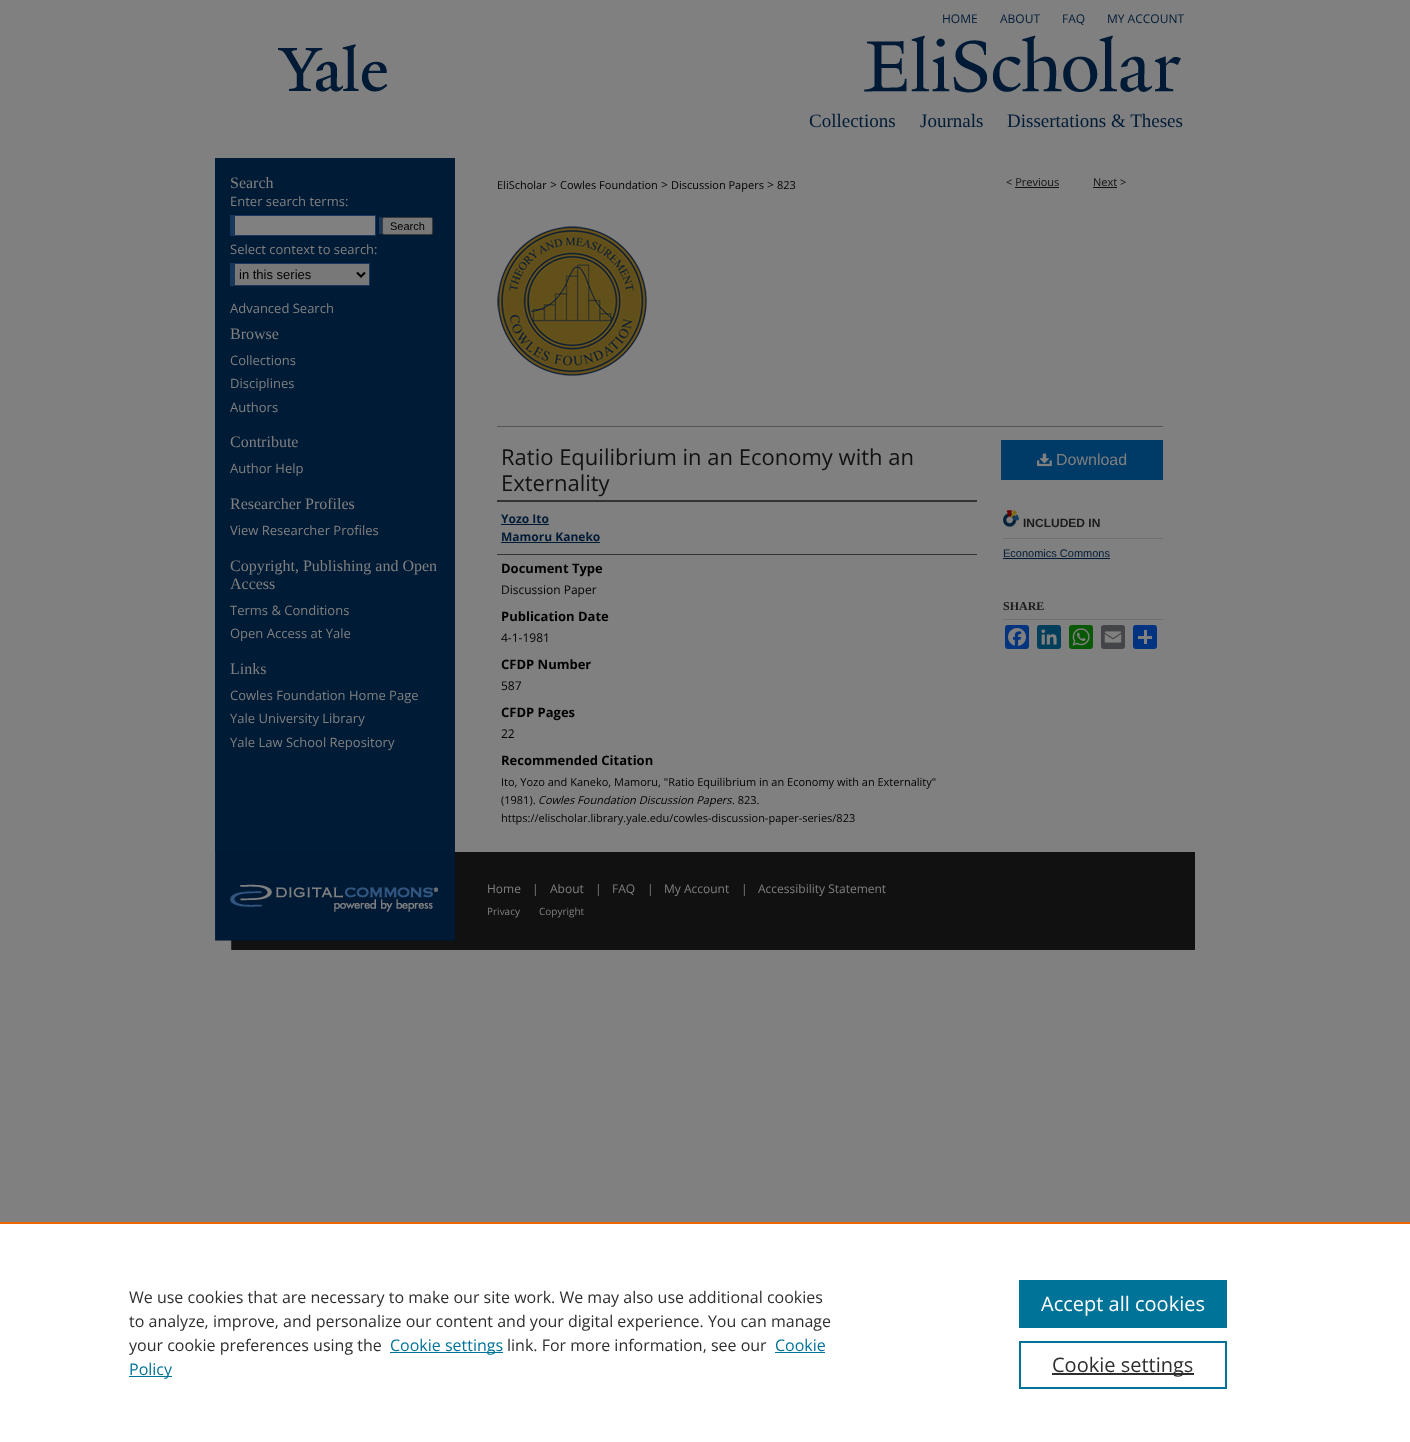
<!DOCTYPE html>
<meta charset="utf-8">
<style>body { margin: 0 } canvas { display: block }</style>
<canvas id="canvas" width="1410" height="1442"></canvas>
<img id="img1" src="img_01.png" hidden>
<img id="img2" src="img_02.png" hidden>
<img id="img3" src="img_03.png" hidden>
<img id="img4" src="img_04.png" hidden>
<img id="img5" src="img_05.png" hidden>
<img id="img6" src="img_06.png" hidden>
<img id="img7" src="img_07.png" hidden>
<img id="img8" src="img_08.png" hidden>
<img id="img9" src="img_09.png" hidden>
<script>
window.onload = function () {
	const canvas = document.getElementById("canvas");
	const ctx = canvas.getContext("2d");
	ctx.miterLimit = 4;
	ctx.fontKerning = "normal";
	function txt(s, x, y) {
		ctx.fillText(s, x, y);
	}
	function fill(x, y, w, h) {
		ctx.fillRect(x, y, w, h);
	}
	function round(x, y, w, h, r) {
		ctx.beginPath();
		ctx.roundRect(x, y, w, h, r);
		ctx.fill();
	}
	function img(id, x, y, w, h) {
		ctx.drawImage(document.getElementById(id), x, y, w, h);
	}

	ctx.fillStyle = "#808080";
	fill(0, 0, 1410, 1442);
	img("img1", 278, 35, 903, 58);
	ctx.fillStyle = "#001B36";
	fill(215, 158, 240, 694);
	ctx.fillStyle = "#19375B";
	fill(230, 215, 146, 21);
	fill(379, 217, 3, 17);
	ctx.fillStyle = "#808080";
	fill(235, 216, 140, 19);
	ctx.fillStyle = "#787878";
	ctx.beginPath();
	ctx.roundRect(382.5, 217.5, 50, 17, 1.5);
	ctx.fill();
	ctx.strokeStyle = "#3B3B3B";
	ctx.stroke();
	fill(235, 264, 134, 21);
	ctx.fillStyle = "#19375B";
	fill(230, 263, 140, 1);
	fill(369, 263, 1, 23);
	fill(230, 285, 140, 1);
	fill(230, 263, 5, 23);
	ctx.beginPath();
	ctx.moveTo(357, 272.5);
	ctx.lineTo(361, 276.5);
	ctx.lineTo(365, 272.5);
	ctx.strokeStyle = "#000000";
	ctx.lineWidth = 2;
	ctx.stroke();
	ctx.fillStyle = "#111111";
	fill(1015, 187, 44, 1);
	fill(1093, 187, 24, 1);
	img("img2", 497, 226, 150, 150);
	ctx.fillStyle = "#555555";
	fill(497, 426, 666, 1);
	ctx.fillStyle = "#333333";
	fill(497, 500, 480, 2);
	fill(497, 554, 480, 1);
	ctx.fillStyle = "#001B36";
	fill(501, 524, 48, 1);
	fill(501, 542, 99, 1);
	ctx.fillStyle = "#003A66";
	fill(1001, 440, 162, 40);
	img("img3", 1037, 453, 15, 14);
	img("img4", 1003, 510, 16, 17);
	ctx.fillStyle = "#6F6F6F";
	fill(1003, 538, 160, 1);
	ctx.fillStyle = "#001B36";
	fill(1003, 558, 107, 1);
	ctx.fillStyle = "#6F6F6F";
	fill(1003, 619, 160, 1);
	ctx.fillStyle = "#043380";
	round(1005, 625, 24, 24, 3);
	img("img5", 1008, 628, 18, 18);
	ctx.fillStyle = "#003E5B";
	round(1037, 625, 24, 24, 3);
	img("img6", 1041, 629, 16, 16);
	ctx.fillStyle = "#095805";
	round(1069, 625, 24, 24, 3);
	img("img7", 1072, 628, 18, 18);
	ctx.fillStyle = "#444548";
	round(1101, 625, 24, 24, 3);
	img("img8", 1104, 631, 18, 12);
	ctx.fillStyle = "#013380";
	round(1133, 625, 24, 24, 3);
	ctx.fillStyle = "#808080";
	fill(1144, 630, 3, 14);
	fill(1138, 636, 14, 3);
	ctx.fillStyle = "#111111";
	fill(455, 852, 740, 98);
	img("img9", 215, 852, 240, 98);
	ctx.fillStyle = "#FFFFFF";
	fill(0, 1224, 1410, 218);
	ctx.fillStyle = "#EB6500";
	fill(0, 1222, 1410, 2);
	ctx.fillStyle = "#007398";
	fill(390, 1352, 113, 1);
	fill(775, 1352, 50, 1);
	fill(129, 1376, 43, 1);
	fill(1019, 1280, 208, 48);
	ctx.strokeStyle = "#007398";
	ctx.strokeRect(1020, 1342, 206, 46);
	ctx.fillStyle = "#2E2E2E";
	fill(1052, 1373, 142, 2);
	ctx.font = "12px Open Sans";
	ctx.fillStyle = "#001B36";
	txt("HOME", 942, 23);
	txt("ABOUT", 1000, 23);
	txt("FAQ", 1062, 23);
	txt("MY ACCOUNT", 1107, 23);
	ctx.font = "19px Liberation Serif";
	txt("Collections", 809, 127);
	txt("Journals", 920, 127);
	txt("Dissertations & Theses", 1007, 127);
	ctx.font = "16px Liberation Serif";
	ctx.fillStyle = "#808080";
	txt("Search", 230, 188);
	ctx.font = "13px Open Sans";
	txt("Enter search terms:", 230, 206);
	ctx.font = "11px Liberation Sans";
	ctx.fillStyle = "#000000";
	txt("Search", 390, 230);
	ctx.font = "13px Open Sans";
	ctx.fillStyle = "#808080";
	txt("Select context to search:", 230, 254);
	ctx.font = "13px Liberation Sans";
	ctx.fillStyle = "#000000";
	txt("in this series", 239, 279);
	ctx.font = "13px Open Sans";
	ctx.fillStyle = "#808080";
	txt("Advanced Search", 230, 313);
	ctx.font = "16px Liberation Serif";
	txt("Browse", 230, 339);
	ctx.font = "13px Open Sans";
	txt("Collections", 230, 365);
	txt("Disciplines", 230, 388);
	txt("Authors", 230, 412);
	ctx.font = "16px Liberation Serif";
	txt("Contribute", 230, 447);
	ctx.font = "13px Open Sans";
	txt("Author Help", 230, 473);
	ctx.font = "16px Liberation Serif";
	txt("Researcher Profiles", 230, 509);
	ctx.font = "13px Open Sans";
	txt("View Researcher Profiles", 230, 535);
	ctx.font = "16px Liberation Serif";
	txt("Copyright, Publishing and Open", 230, 571);
	txt("Access", 230, 589);
	ctx.font = "13px Open Sans";
	txt("Terms & Conditions", 230, 615);
	txt("Open Access at Yale", 230, 638);
	ctx.font = "16px Liberation Serif";
	txt("Links", 230, 674);
	ctx.font = "13px Open Sans";
	txt("Cowles Foundation Home Page", 230, 700);
	txt("Yale University Library", 230, 723);
	txt("Yale Law School Repository", 230, 747);
	ctx.font = "11px Open Sans";
	ctx.fillStyle = "#000000";
	txt("EliScholar", 497, 189);
	ctx.font = "12px Open Sans";
	txt(">", 550, 189);
	ctx.font = "11px Open Sans";
	txt("Cowles Foundation", 560, 189);
	ctx.font = "12px Open Sans";
	txt(">", 661, 189);
	ctx.font = "11px Open Sans";
	txt("Discussion Papers", 671, 189);
	ctx.font = "12px Open Sans";
	txt(">", 767, 189);
	ctx.font = "11px Open Sans";
	txt("823", 777, 189);
	ctx.fillStyle = "#111111";
	txt("< Previous", 1006, 186);
	txt("Next >", 1093, 186);
	ctx.font = "22px Open Sans";
	txt("Ratio Equilibrium in an Economy with an", 501, 465);
	txt("Externality", 501, 491);
	ctx.font = "bold 12px Open Sans";
	ctx.fillStyle = "#001B36";
	txt("Yozo Ito", 501, 523);
	txt("Mamoru Kaneko", 501, 541);
	ctx.font = "bold 13px Open Sans";
	ctx.fillStyle = "#000000";
	txt("Document Type", 501, 573);
	ctx.font = "12px Open Sans";
	txt("Discussion Paper", 501, 594);
	ctx.font = "bold 13px Open Sans";
	txt("Publication Date", 501, 621);
	ctx.font = "12px Open Sans";
	txt("4-1-1981", 501, 642);
	ctx.font = "bold 13px Open Sans";
	txt("CFDP Number", 501, 669);
	ctx.font = "12px Open Sans";
	txt("587", 501, 690);
	ctx.font = "bold 13px Open Sans";
	txt("CFDP Pages", 501, 717);
	ctx.font = "12px Open Sans";
	txt("22", 501, 738);
	ctx.font = "bold 13px Open Sans";
	txt("Recommended Citation", 501, 765);
	ctx.font = "11px Open Sans";
	txt("Ito, Yozo and Kaneko, Mamoru, \"Ratio Equilibrium in an Economy with an Externality\"", 501, 786);
	txt("(1981).", 501, 804);
	ctx.font = "italic 11px Open Sans";
	txt("Cowles Foundation Discussion Papers", 538, 804);
	ctx.font = "11px Open Sans";
	txt(". 823.", 732, 804);
	txt("https://elischolar.library.yale.edu/cowles-discussion-paper-series/823", 501, 822);
	ctx.font = "16px Liberation Sans";
	ctx.fillStyle = "#808080";
	txt("Download", 1056, 465);
	ctx.font = "bold 12px Liberation Sans";
	ctx.fillStyle = "#1A1A1A";
	txt("INCLUDED IN", 1023, 527);
	ctx.font = "11px Liberation Sans";
	ctx.fillStyle = "#001B36";
	txt("Economics Commons", 1003, 557);
	ctx.font = "bold 12px Liberation Serif";
	ctx.fillStyle = "#1A1A1A";
	txt("SHARE", 1003, 610);
	ctx.font = "12px Open Sans";
	ctx.fillStyle = "#808080";
	txt("Home", 487, 893);
	txt("|", 532, 893);
	txt("About", 550, 893);
	txt("|", 595, 893);
	txt("FAQ", 612, 893);
	txt("|", 647, 893);
	txt("My Account", 664, 893);
	txt("|", 741, 893);
	txt("Accessibility Statement", 758, 893);
	ctx.font = "10px Open Sans";
	txt("Privacy", 487, 915);
	txt("Copyright", 539, 915);
	ctx.font = "16px Open Sans";
	ctx.fillStyle = "#2E2E2E";
	txt("We use cookies that are necessary to make our site work. We may also use additional cookies", 129, 1303);
	txt("to analyze, improve, and personalize our content and your digital experience. You can manage", 129, 1327);
	txt("your cookie preferences using the", 129, 1351);
	ctx.fillStyle = "#007398";
	txt("Cookie settings", 390, 1351);
	ctx.fillStyle = "#2E2E2E";
	txt("link. For more information, see our", 507, 1351);
	ctx.fillStyle = "#007398";
	txt("Cookie", 775, 1351);
	txt("Policy", 129, 1375);
	ctx.font = "20px Open Sans";
	ctx.fillStyle = "#FFFFFF";
	txt("Accept all cookies", 1041, 1311);
	ctx.fillStyle = "#2E2E2E";
	txt("Cookie settings", 1052, 1372);
};
</script>
